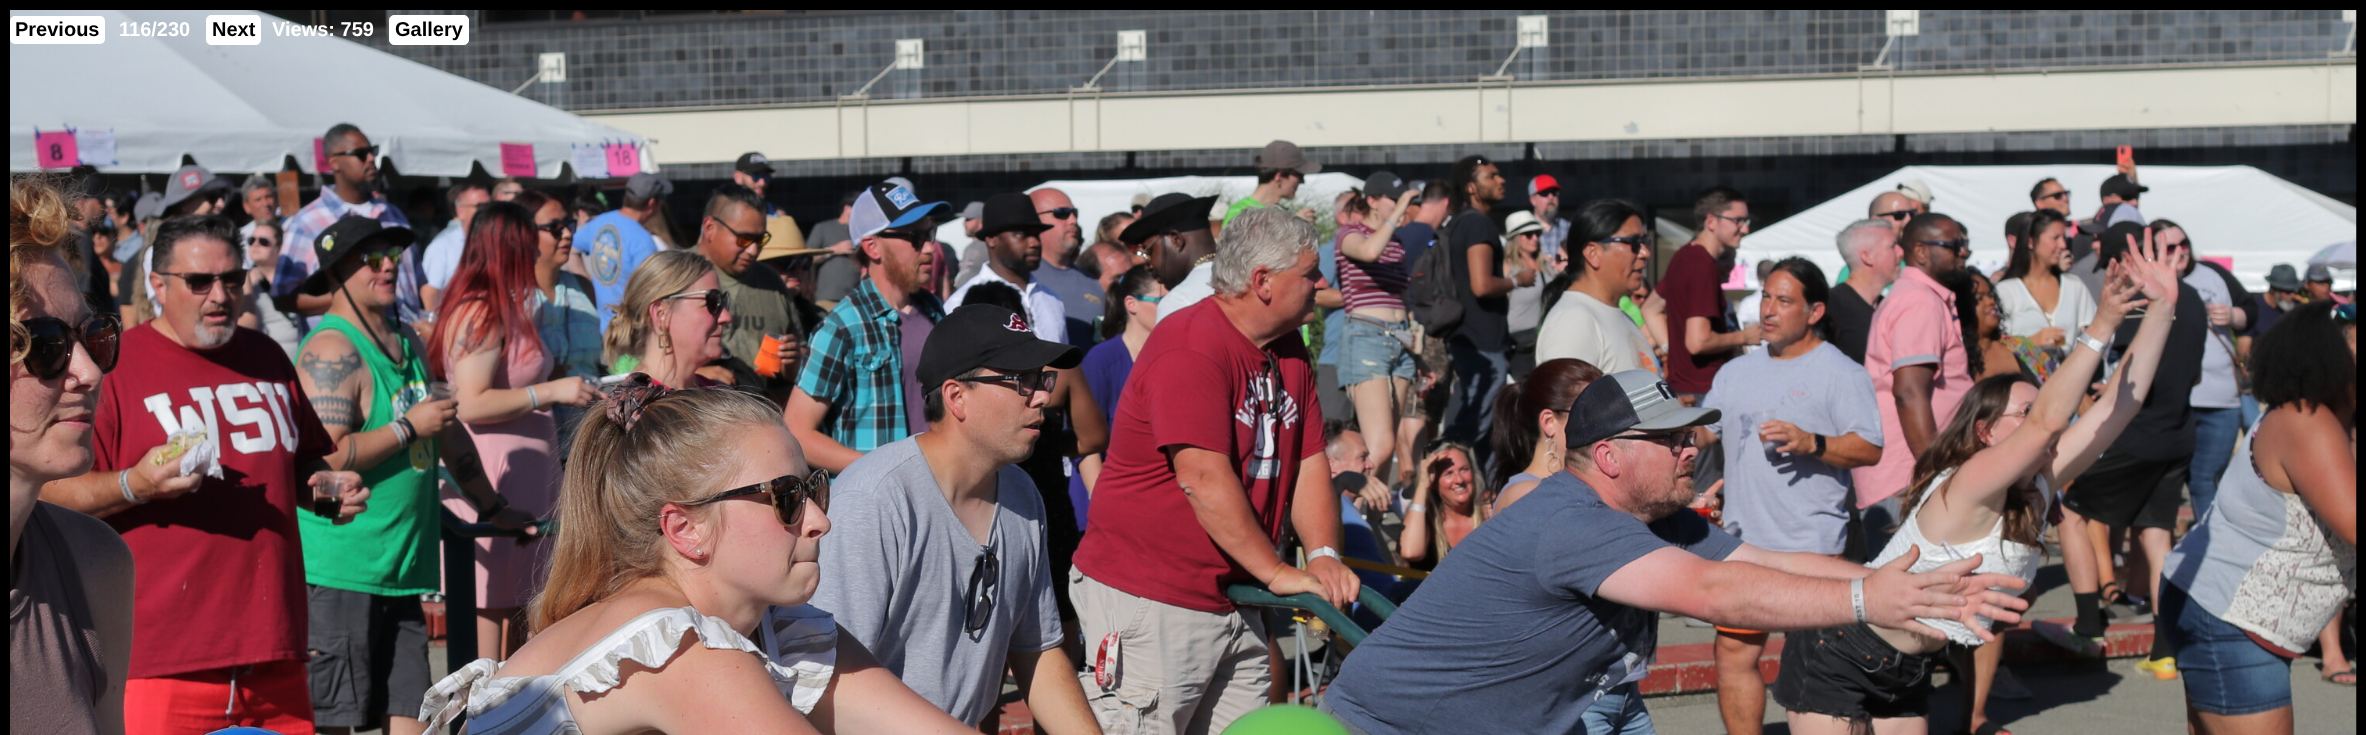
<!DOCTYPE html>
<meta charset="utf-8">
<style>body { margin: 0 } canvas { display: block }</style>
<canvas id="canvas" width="2366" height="735"></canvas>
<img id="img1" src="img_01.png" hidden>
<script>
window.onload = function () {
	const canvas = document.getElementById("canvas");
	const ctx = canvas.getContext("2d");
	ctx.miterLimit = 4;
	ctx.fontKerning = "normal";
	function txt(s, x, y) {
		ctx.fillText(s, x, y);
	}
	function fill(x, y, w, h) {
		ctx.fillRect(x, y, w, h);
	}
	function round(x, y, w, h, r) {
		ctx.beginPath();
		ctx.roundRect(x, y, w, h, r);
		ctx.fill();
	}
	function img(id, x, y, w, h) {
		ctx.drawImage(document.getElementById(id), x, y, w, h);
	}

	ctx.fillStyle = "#000000";
	fill(0, 0, 2366, 735);
	img("img1", 10, 10, 2347, 725);
	ctx.fillStyle = "#FFFFFF";
	round(10, 16, 95, 28, 5);
	ctx.beginPath();
	ctx.roundRect(206.5, 15.5, 54, 29, 4.5);
	ctx.fill();
	ctx.strokeStyle = "#FFFFFF";
	ctx.stroke();
	ctx.beginPath();
	ctx.roundRect(389.5, 15.5, 79, 29, 4.5);
	ctx.fill();
	ctx.stroke();
	ctx.font = "bold 20px Liberation Sans";
	ctx.fillStyle = "#000000";
	txt("Previous", 15, 36);
	ctx.fillStyle = "#FFFFFF";
	txt("116/230", 119, 36);
	ctx.fillStyle = "#000000";
	txt("Next", 212, 36);
	ctx.fillStyle = "#FFFFFF";
	txt("Views: 759", 272, 36);
	ctx.fillStyle = "#000000";
	txt("Gallery", 395, 36);
};
</script>
